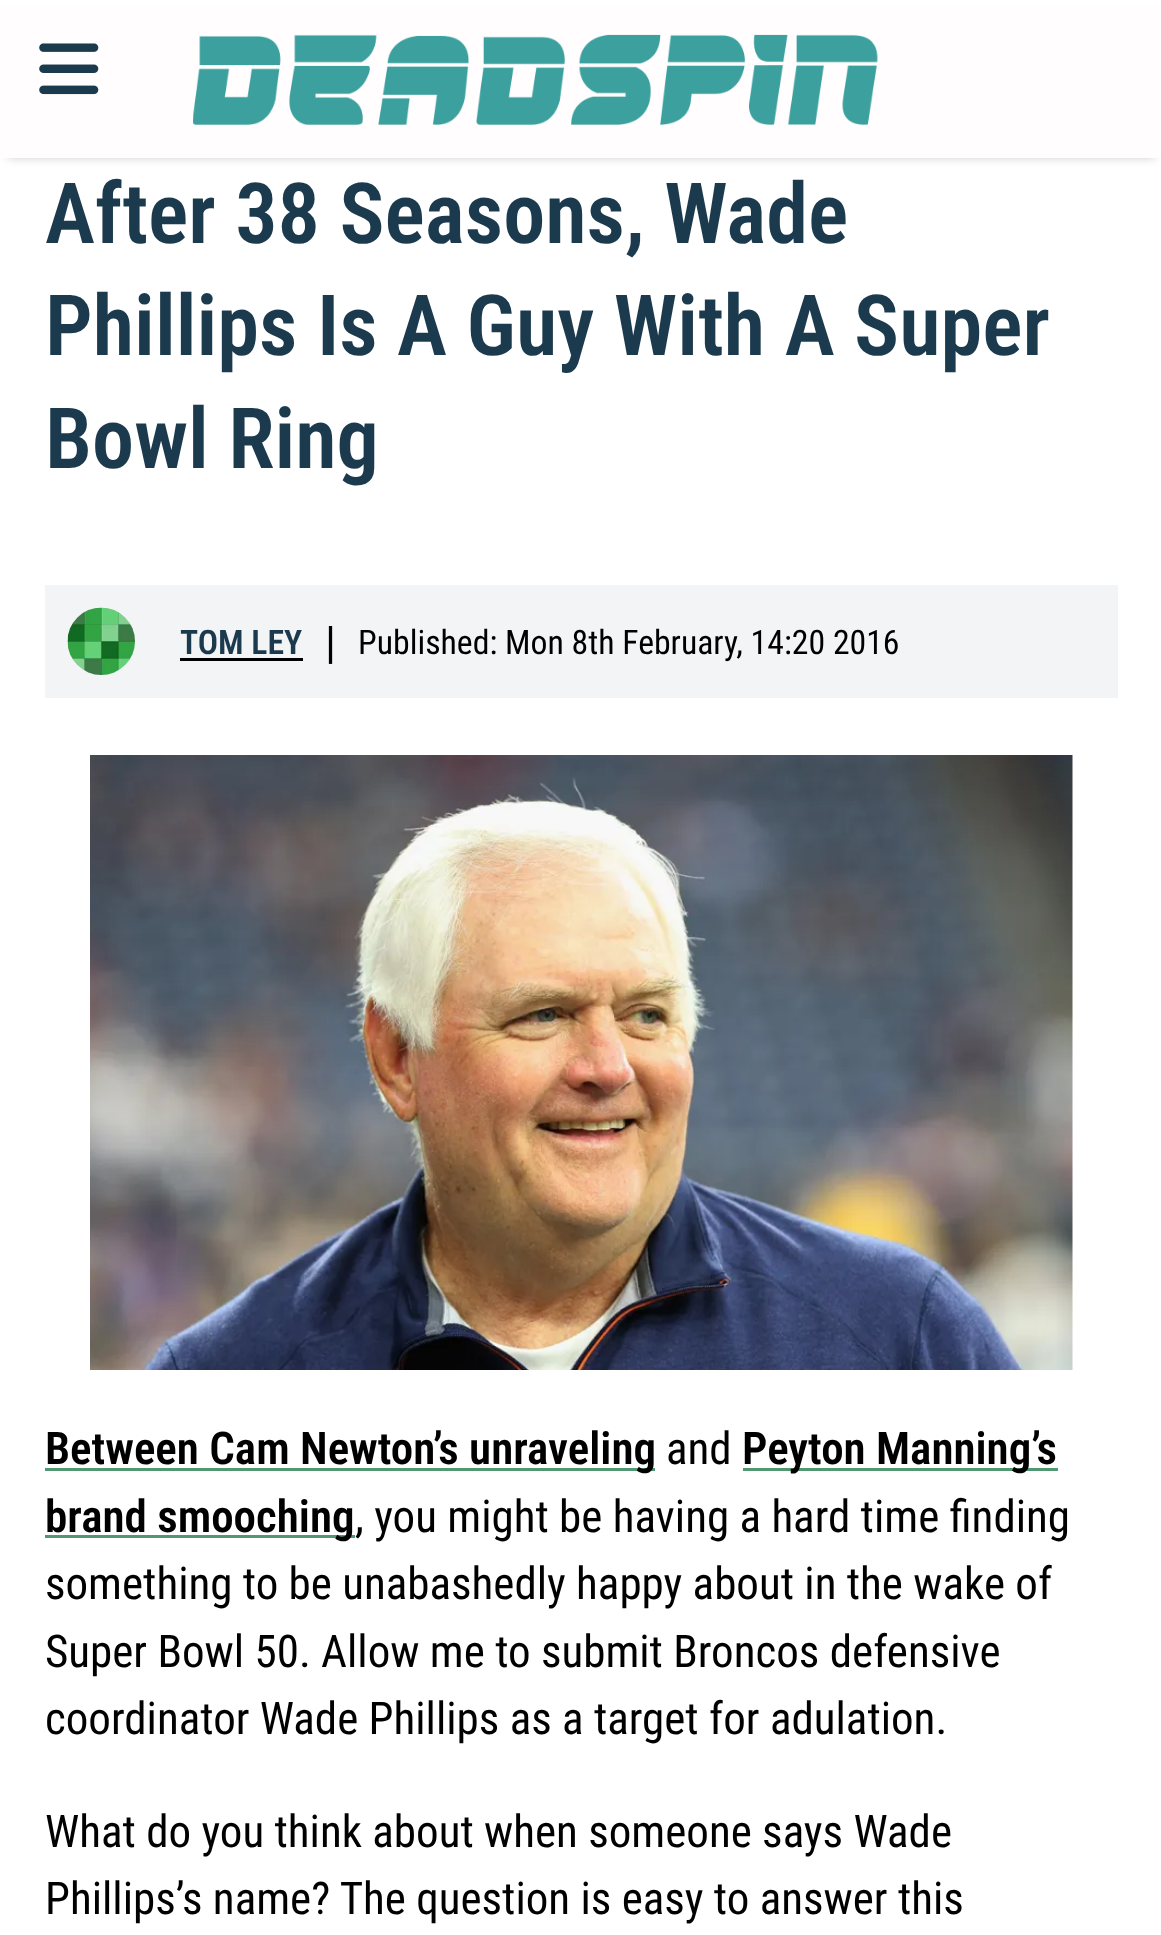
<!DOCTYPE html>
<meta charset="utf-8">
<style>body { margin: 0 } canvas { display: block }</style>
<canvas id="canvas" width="1161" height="1935"></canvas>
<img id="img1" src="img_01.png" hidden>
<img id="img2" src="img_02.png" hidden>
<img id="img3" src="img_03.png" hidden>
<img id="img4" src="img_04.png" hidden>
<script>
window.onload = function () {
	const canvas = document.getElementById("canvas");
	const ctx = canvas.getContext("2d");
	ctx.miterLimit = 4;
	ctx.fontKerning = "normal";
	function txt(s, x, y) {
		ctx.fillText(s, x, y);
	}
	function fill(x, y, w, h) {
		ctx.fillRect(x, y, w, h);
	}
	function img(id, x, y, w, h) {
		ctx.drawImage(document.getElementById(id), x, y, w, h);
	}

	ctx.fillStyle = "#FFFFFF";
	fill(0, 0, 1161, 1935);
	ctx.fillStyle = "#CFCFCF";
	ctx.filter = "blur(5px)";
	ctx.beginPath();
	ctx.rect(8, 15, 1147, 143);
	ctx.fill();
	ctx.filter = "none";
	ctx.fillStyle = "#FFFDFD";
	fill(0, 7, 1161, 151);
	img("img1", 39, 43, 60, 52);
	img("img2", 193, 34, 685, 91);
	ctx.fillStyle = "#F3F4F6";
	fill(45, 585, 1073, 113);
	img("img3", 67, 607, 68, 68);
	ctx.fillStyle = "#000000";
	fill(180, 658, 123, 3);
	img("img4", 90, 755, 983, 615);
	ctx.fillStyle = "#519872";
	fill(45, 1468, 610, 3);
	fill(743, 1468, 315, 3);
	fill(45, 1535, 310, 3);
	ctx.font = "600 84.4px Roboto Condensed";
	ctx.fillStyle = "#1C3A4D";
	txt("After 38 Seasons, Wade", 45, 243);
	txt("Phillips Is A Guy With A Super", 45, 355);
	txt("Bowl Ring", 45, 468);
	ctx.font = "600 33.75px Roboto Condensed";
	txt("TOM LEY", 180, 654);
	ctx.font = "45px Roboto Condensed";
	ctx.fillStyle = "#000000";
	txt("|", 325, 658);
	ctx.font = "33.75px Roboto Condensed";
	txt("Published: Mon 8th February, 14:20 2016", 358, 654);
	ctx.font = "600 45px Roboto Condensed";
	txt("Between Cam Newton’s unraveling", 45, 1464);
	ctx.font = "45px Roboto Condensed";
	txt("and", 666, 1464);
	ctx.font = "600 45px Roboto Condensed";
	txt("Peyton Manning’s", 742, 1464);
	txt("brand smooching", 45, 1532);
	ctx.font = "45px Roboto Condensed";
	txt(", you might be having a hard time finding", 355, 1532);
	txt("something to be unabashedly happy about in the wake of", 45, 1599);
	txt("Super Bowl 50. Allow me to submit Broncos defensive", 45, 1667);
	txt("coordinator Wade Phillips as a target for adulation.", 45, 1734);
	txt("What do you think about when someone says Wade", 45, 1847);
	txt("Phillips’s name? The question is easy to answer this", 45, 1914);
};
</script>
